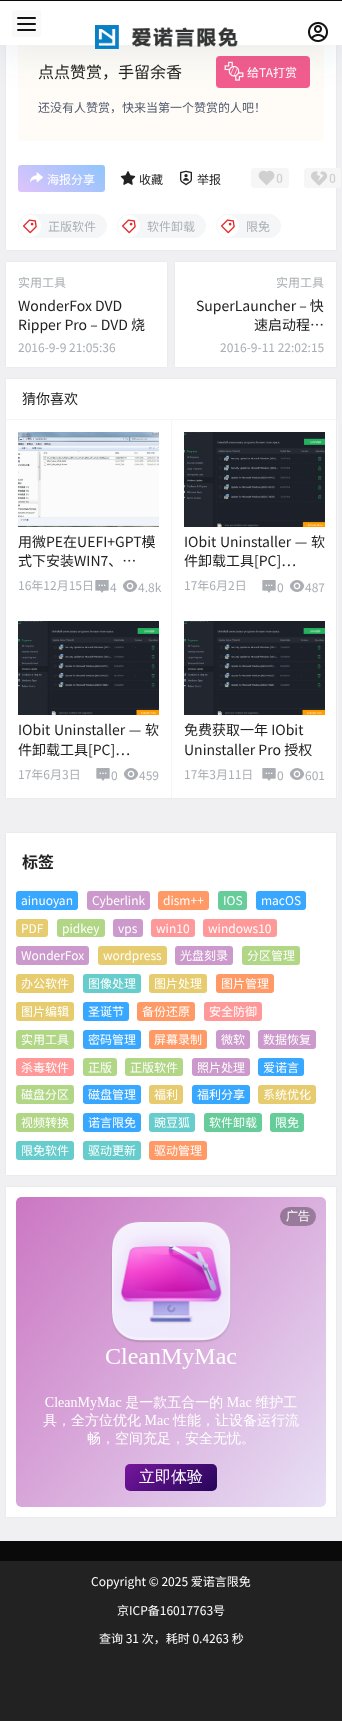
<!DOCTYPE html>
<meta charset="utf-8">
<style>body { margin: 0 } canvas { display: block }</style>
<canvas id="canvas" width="342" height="1721"></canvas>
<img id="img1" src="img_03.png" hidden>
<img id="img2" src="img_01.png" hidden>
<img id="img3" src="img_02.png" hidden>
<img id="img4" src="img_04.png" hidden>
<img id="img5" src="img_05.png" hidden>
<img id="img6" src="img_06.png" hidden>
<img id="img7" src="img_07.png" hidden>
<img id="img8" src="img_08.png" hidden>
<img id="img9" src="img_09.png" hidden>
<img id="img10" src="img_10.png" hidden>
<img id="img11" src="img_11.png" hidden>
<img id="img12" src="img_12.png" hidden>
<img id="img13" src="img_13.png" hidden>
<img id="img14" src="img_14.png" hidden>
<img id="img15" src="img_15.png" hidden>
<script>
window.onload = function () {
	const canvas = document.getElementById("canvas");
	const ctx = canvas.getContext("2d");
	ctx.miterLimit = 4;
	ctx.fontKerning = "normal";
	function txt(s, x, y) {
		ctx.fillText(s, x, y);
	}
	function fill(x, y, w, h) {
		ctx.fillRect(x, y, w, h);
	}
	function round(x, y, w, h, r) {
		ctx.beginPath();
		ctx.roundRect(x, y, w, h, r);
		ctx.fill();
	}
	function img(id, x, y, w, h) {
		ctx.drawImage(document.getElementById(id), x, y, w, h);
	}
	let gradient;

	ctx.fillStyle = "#F0F0F2";
	fill(0, 0, 342, 1721);
	ctx.fillStyle = "rgba(98, 124, 153, 0.1)";
	ctx.filter = "blur(1px)";
	ctx.beginPath();
	ctx.rect(6, -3, 330, 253);
	ctx.fill();
	ctx.filter = "none";
	ctx.fillStyle = "#FFFFFF";
	fill(6, 45, 330, 205);
	ctx.fillStyle = "#FFFCF7";
	round(18, 40, 306, 101, 3);
	ctx.fillStyle = "#F25D8E";
	round(216, 56, 94, 32, 4);
	img("img1", 224, 61, 20, 20);
	ctx.fillStyle = "rgba(17, 58, 93, 0.1)";
	ctx.filter = "blur(20px)";
	ctx.beginPath();
	ctx.rect(0, -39, 342, 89);
	ctx.fill();
	ctx.filter = "none";
	ctx.fillStyle = "#0A0A0A";
	fill(0, 0, 342, 1);
	ctx.fillStyle = "#FFFFFF";
	fill(0, 2, 342, 43);
	ctx.fillStyle = "#FCFCFC";
	fill(0, 1, 342, 1);
	ctx.fillStyle = "#F9F9F9";
	round(12, 10, 29, 27, 2);
	ctx.fillStyle = "#121212";
	round(17, 17, 19, 2, 1);
	round(17, 23, 19, 2, 1);
	round(17, 29, 19, 2, 1);
	img("img2", 95, 25, 143, 24);
	img("img3", 308, 22, 20, 20);
	gradient = ctx.createLinearGradient(37, 208, 86, 149);
	gradient.addColorStop(0, "#E0C3FC");
	gradient.addColorStop(1, "#8EC5FC");
	ctx.fillStyle = gradient;
	round(18, 165, 87, 27, 3);
	img("img4", 30, 172, 14, 11);
	img("img5", 120, 171, 16, 14);
	img("img6", 180, 170, 12, 16);
	ctx.fillStyle = "#F6F6F6";
	round(251, 168, 38, 20, 3);
	img("img7", 258, 170, 17, 16);
	round(304, 168, 37, 20, 3);
	img("img8", 311, 171, 17, 15);
	ctx.fillStyle = "#F5F6F7";
	ctx.beginPath();
	ctx.roundRect(18.5, 214.5, 88, 23, 11.5);
	ctx.fill();
	ctx.strokeStyle = "#F5F6F7";
	ctx.stroke();
	ctx.fillStyle = "#FFFFFF";
	ctx.beginPath();
	ctx.arc(30, 226, 11, 0, Math.PI * 2);
	ctx.fill();
	img("img9", 23, 219, 14, 15);
	ctx.fillStyle = "#F5F6F7";
	ctx.beginPath();
	ctx.roundRect(117.5, 214.5, 88, 23, 11.5);
	ctx.fill();
	ctx.stroke();
	ctx.fillStyle = "#FFFFFF";
	ctx.beginPath();
	ctx.arc(129, 226, 11, 0, Math.PI * 2);
	ctx.fill();
	img("img9", 122, 219, 14, 15);
	ctx.fillStyle = "#F5F6F7";
	ctx.beginPath();
	ctx.roundRect(216.5, 214.5, 64, 23, 11.5);
	ctx.fill();
	ctx.stroke();
	ctx.fillStyle = "#FFFFFF";
	ctx.beginPath();
	ctx.arc(228, 226, 11, 0, Math.PI * 2);
	ctx.fill();
	img("img9", 221, 219, 14, 15);
	ctx.fillStyle = "rgba(98, 124, 153, 0.1)";
	ctx.filter = "blur(1px)";
	ctx.beginPath();
	ctx.rect(6, 262, 161, 105);
	ctx.fill();
	ctx.filter = "none";
	ctx.fillStyle = "#FFFFFF";
	fill(6, 262, 161, 105);
	ctx.fillStyle = "rgba(98, 124, 153, 0.1)";
	ctx.filter = "blur(1px)";
	ctx.beginPath();
	ctx.rect(175, 262, 161, 105);
	ctx.fill();
	ctx.filter = "none";
	ctx.fillStyle = "#FFFFFF";
	fill(175, 262, 161, 105);
	ctx.fillStyle = "rgba(98, 124, 153, 0.1)";
	ctx.filter = "blur(1px)";
	ctx.beginPath();
	ctx.rect(6, 379, 330, 419);
	ctx.fill();
	ctx.filter = "none";
	ctx.fillStyle = "#FFFFFF";
	fill(6, 379, 330, 419);
	ctx.fillStyle = "#F5F6F7";
	fill(6, 419, 330, 1);
	fill(171, 420, 1, 378);
	img("img10", 18, 432, 141, 95);
	img("img11", 95, 580, 14, 13);
	img("img12", 122, 580, 16, 12);
	fill(337, 420, 1, 378);
	img("img13", 184, 432, 141, 95);
	img("img11", 262, 580, 14, 13);
	img("img12", 289, 580, 16, 12);
	img("img14", 18, 621, 141, 94);
	img("img11", 96, 768, 14, 13);
	img("img12", 123, 768, 16, 12);
	img("img14", 184, 621, 141, 94);
	img("img11", 262, 768, 14, 13);
	img("img12", 289, 768, 16, 12);
	ctx.fillStyle = "rgba(98, 124, 153, 0.1)";
	ctx.filter = "blur(1px)";
	ctx.beginPath();
	ctx.rect(6, 833, 330, 342);
	ctx.fill();
	ctx.filter = "none";
	ctx.fillStyle = "#FFFFFF";
	fill(6, 833, 330, 342);
	ctx.fillStyle = "#37A7FF";
	round(16, 891, 62, 19, 3);
	ctx.fillStyle = "#CC99CC";
	round(87, 891, 63, 19, 3);
	ctx.fillStyle = "#FF9966";
	round(158, 891, 51, 19, 3);
	ctx.fillStyle = "#66CC99";
	round(218, 891, 29, 19, 3);
	ctx.fillStyle = "#37A7FF";
	round(256, 891, 50, 19, 3);
	ctx.fillStyle = "#E6CC6E";
	round(16, 919, 32, 18, 3);
	ctx.fillStyle = "#B0D686";
	round(57, 919, 48, 18, 3);
	ctx.fillStyle = "#CC99CC";
	round(113, 919, 30, 18, 3);
	ctx.fillStyle = "#FF9999";
	round(151, 919, 44, 18, 3);
	round(203, 919, 74, 18, 3);
	ctx.fillStyle = "#CC99CC";
	round(16, 946, 73, 19, 3);
	ctx.fillStyle = "#E6CC6E";
	round(98, 946, 69, 19, 3);
	ctx.fillStyle = "#CC99CC";
	round(175, 946, 58, 19, 3);
	ctx.fillStyle = "#B0D686";
	round(242, 946, 58, 19, 3);
	ctx.fillStyle = "#E6CC6E";
	round(16, 974, 58, 19, 3);
	ctx.fillStyle = "#66CCCC";
	round(83, 974, 58, 19, 3);
	ctx.fillStyle = "#E6CC6E";
	round(149, 974, 58, 19, 3);
	ctx.fillStyle = "#FF9966";
	round(216, 974, 58, 19, 3);
	ctx.fillStyle = "#E6CC6E";
	round(16, 1002, 58, 19, 3);
	ctx.fillStyle = "#37A7FF";
	round(83, 1002, 46, 19, 3);
	ctx.fillStyle = "#FF9966";
	round(137, 1002, 58, 19, 3);
	ctx.fillStyle = "#FF9999";
	round(204, 1002, 58, 19, 3);
	ctx.fillStyle = "#B0D686";
	round(16, 1030, 58, 19, 3);
	ctx.fillStyle = "#37A7FF";
	round(83, 1030, 58, 19, 3);
	ctx.fillStyle = "#FF9966";
	round(149, 1030, 58, 19, 3);
	ctx.fillStyle = "#CC99CC";
	round(216, 1030, 34, 19, 3);
	round(258, 1030, 58, 19, 3);
	ctx.fillStyle = "#FF9999";
	round(16, 1058, 58, 18, 3);
	ctx.fillStyle = "#B0D686";
	round(83, 1058, 34, 18, 3);
	round(125, 1058, 58, 18, 3);
	ctx.fillStyle = "#CC99CC";
	round(192, 1058, 58, 18, 3);
	ctx.fillStyle = "#37A7FF";
	round(258, 1058, 46, 18, 3);
	ctx.fillStyle = "#B0D686";
	round(16, 1085, 58, 19, 3);
	ctx.fillStyle = "#37A7FF";
	round(83, 1085, 58, 19, 3);
	ctx.fillStyle = "#E6CC6E";
	round(149, 1085, 34, 19, 3);
	ctx.fillStyle = "#37A7FF";
	round(192, 1085, 58, 19, 3);
	ctx.fillStyle = "#E6CC6E";
	round(258, 1085, 58, 19, 3);
	ctx.fillStyle = "#B0D686";
	round(16, 1113, 58, 19, 3);
	ctx.fillStyle = "#37A7FF";
	round(83, 1113, 58, 19, 3);
	ctx.fillStyle = "#66CCCC";
	round(149, 1113, 46, 19, 3);
	ctx.fillStyle = "#66CC99";
	round(204, 1113, 58, 19, 3);
	round(270, 1113, 34, 19, 3);
	ctx.fillStyle = "#66CCCC";
	round(16, 1141, 58, 19, 3);
	round(83, 1141, 58, 19, 3);
	ctx.fillStyle = "#FF9966";
	round(149, 1141, 58, 19, 3);
	ctx.fillStyle = "rgba(98, 124, 153, 0.1)";
	ctx.filter = "blur(1px)";
	ctx.beginPath();
	ctx.rect(6, 1187, 330, 330);
	ctx.fill();
	ctx.filter = "none";
	ctx.fillStyle = "#FFFFFF";
	fill(6, 1187, 330, 330);
	img("img15", 16, 1197, 310, 310);
	ctx.fillStyle = "#0A0A0A";
	fill(0, 1541, 342, 20);
	ctx.fillStyle = "#222222";
	fill(0, 1561, 342, 160);
	ctx.font = "16px Noto Sans CJK SC";
	txt("点点赞赏，手留余香", 38, 78);
	ctx.font = "12px Noto Sans CJK SC";
	ctx.fillStyle = "#FFFFFF";
	txt("给TA打赏", 247, 77);
	ctx.fillStyle = "#515A6E";
	txt("还没有人赞赏，快来当第一个赞赏的人吧！", 38, 112);
	ctx.fillStyle = "#FFFFFF";
	txt("海报分享", 47, 184);
	ctx.fillStyle = "#222222";
	txt("收藏", 139, 184);
	txt("举报", 197, 184);
	ctx.font = "500 13px DIN";
	ctx.fillStyle = "#D0D0D0";
	txt("0", 276, 183);
	txt("0", 329, 183);
	ctx.font = "12px Noto Sans CJK SC";
	ctx.fillStyle = "#AAAEB3";
	txt("正版软件", 48, 231);
	txt("软件卸载", 147, 231);
	txt("限免", 246, 231);
	txt("实用工具", 18, 287);
	ctx.font = "14px Noto Sans CJK SC";
	ctx.fillStyle = "#222222";
	txt("WonderFox DVD", 18, 311);
	txt("Ripper Pro – DVD 烧", 18, 330);
	ctx.font = "12px Noto Sans CJK SC";
	ctx.fillStyle = "#AAAEB3";
	txt("2016-9-9 21:05:36", 18, 352);
	txt("实用工具", 276, 287);
	ctx.font = "14px Noto Sans CJK SC";
	ctx.fillStyle = "#222222";
	txt("SuperLauncher – 快", 196, 311);
	txt("速启动程…", 254, 330);
	ctx.font = "12px Noto Sans CJK SC";
	ctx.fillStyle = "#AAAEB3";
	txt("2016-9-11 22:02:15", 220, 352);
	ctx.font = "14px Noto Sans CJK SC";
	ctx.fillStyle = "#222222";
	txt("猜你喜欢", 22, 404);
	txt("用微PE在UEFI+GPT模", 18, 547);
	txt("式下安装WIN7、…", 18, 566);
	ctx.font = "12px Noto Sans CJK SC";
	ctx.fillStyle = "#AAAEB3";
	txt("16年12月15日", 18, 590);
	txt("4", 110, 592);
	txt("4.8k", 138, 592);
	ctx.wordSpacing = "0.5px";
	ctx.font = "14px Noto Sans CJK SC";
	ctx.fillStyle = "#222222";
	txt("IObit Uninstaller — 软", 184, 547);
	ctx.wordSpacing = "0px";
	txt("件卸载工具[PC]…", 184, 566);
	ctx.font = "12px Noto Sans CJK SC";
	ctx.fillStyle = "#AAAEB3";
	txt("17年6月2日", 184, 590);
	txt("0", 277, 592);
	txt("487", 305, 592);
	ctx.wordSpacing = "0.5px";
	ctx.font = "14px Noto Sans CJK SC";
	ctx.fillStyle = "#222222";
	txt("IObit Uninstaller — 软", 18, 735);
	ctx.wordSpacing = "0px";
	txt("件卸载工具[PC]…", 18, 755);
	ctx.font = "12px Noto Sans CJK SC";
	ctx.fillStyle = "#AAAEB3";
	txt("17年6月3日", 18, 779);
	txt("0", 111, 780);
	txt("459", 139, 780);
	ctx.font = "14px Noto Sans CJK SC";
	ctx.fillStyle = "#222222";
	txt("免费获取一年 IObit", 184, 735);
	txt("Uninstaller Pro 授权", 184, 755);
	ctx.font = "12px Noto Sans CJK SC";
	ctx.fillStyle = "#AAAEB3";
	txt("17年3月11日", 184, 779);
	txt("0", 277, 780);
	txt("601", 305, 780);
	ctx.font = "bold 16px Noto Sans CJK SC";
	ctx.fillStyle = "#222222";
	txt("标签", 22, 868);
	ctx.font = "12px Noto Sans CJK SC";
	ctx.fillStyle = "#FFFFFF";
	txt("ainuoyan", 21, 905);
	txt("Cyberlink", 92, 905);
	txt("dism++", 163, 905);
	txt("IOS", 223, 905);
	txt("macOS", 261, 905);
	txt("PDF", 21, 933);
	txt("pidkey", 62, 933);
	txt("vps", 118, 933);
	txt("win10", 156, 933);
	txt("windows10", 208, 933);
	txt("WonderFox", 21, 960);
	txt("wordpress", 103, 960);
	txt("光盘刻录", 180, 960);
	txt("分区管理", 247, 960);
	txt("办公软件", 21, 988);
	txt("图像处理", 88, 988);
	txt("图片处理", 154, 988);
	txt("图片管理", 221, 988);
	txt("图片编辑", 21, 1016);
	txt("圣诞节", 88, 1016);
	txt("备份还原", 142, 1016);
	txt("安全防御", 209, 1016);
	txt("实用工具", 21, 1044);
	txt("密码管理", 88, 1044);
	txt("屏幕录制", 154, 1044);
	txt("微软", 221, 1044);
	txt("数据恢复", 263, 1044);
	txt("杀毒软件", 21, 1072);
	txt("正版", 88, 1072);
	txt("正版软件", 130, 1072);
	txt("照片处理", 197, 1072);
	txt("爱诺言", 263, 1072);
	txt("磁盘分区", 21, 1099);
	txt("磁盘管理", 88, 1099);
	txt("福利", 154, 1099);
	txt("福利分享", 197, 1099);
	txt("系统优化", 263, 1099);
	txt("视频转换", 21, 1127);
	txt("诺言限免", 88, 1127);
	txt("豌豆狐", 154, 1127);
	txt("软件卸载", 209, 1127);
	txt("限免", 275, 1127);
	txt("限免软件", 21, 1155);
	txt("驱动更新", 88, 1155);
	txt("驱动管理", 154, 1155);
	txt("Copyright © 2025 爱诺言限免", 91, 1586);
	txt("京ICP备16017763号", 117, 1615);
	txt("查询 31 次，耗时 0.4263 秒", 99, 1643);
};
</script>
